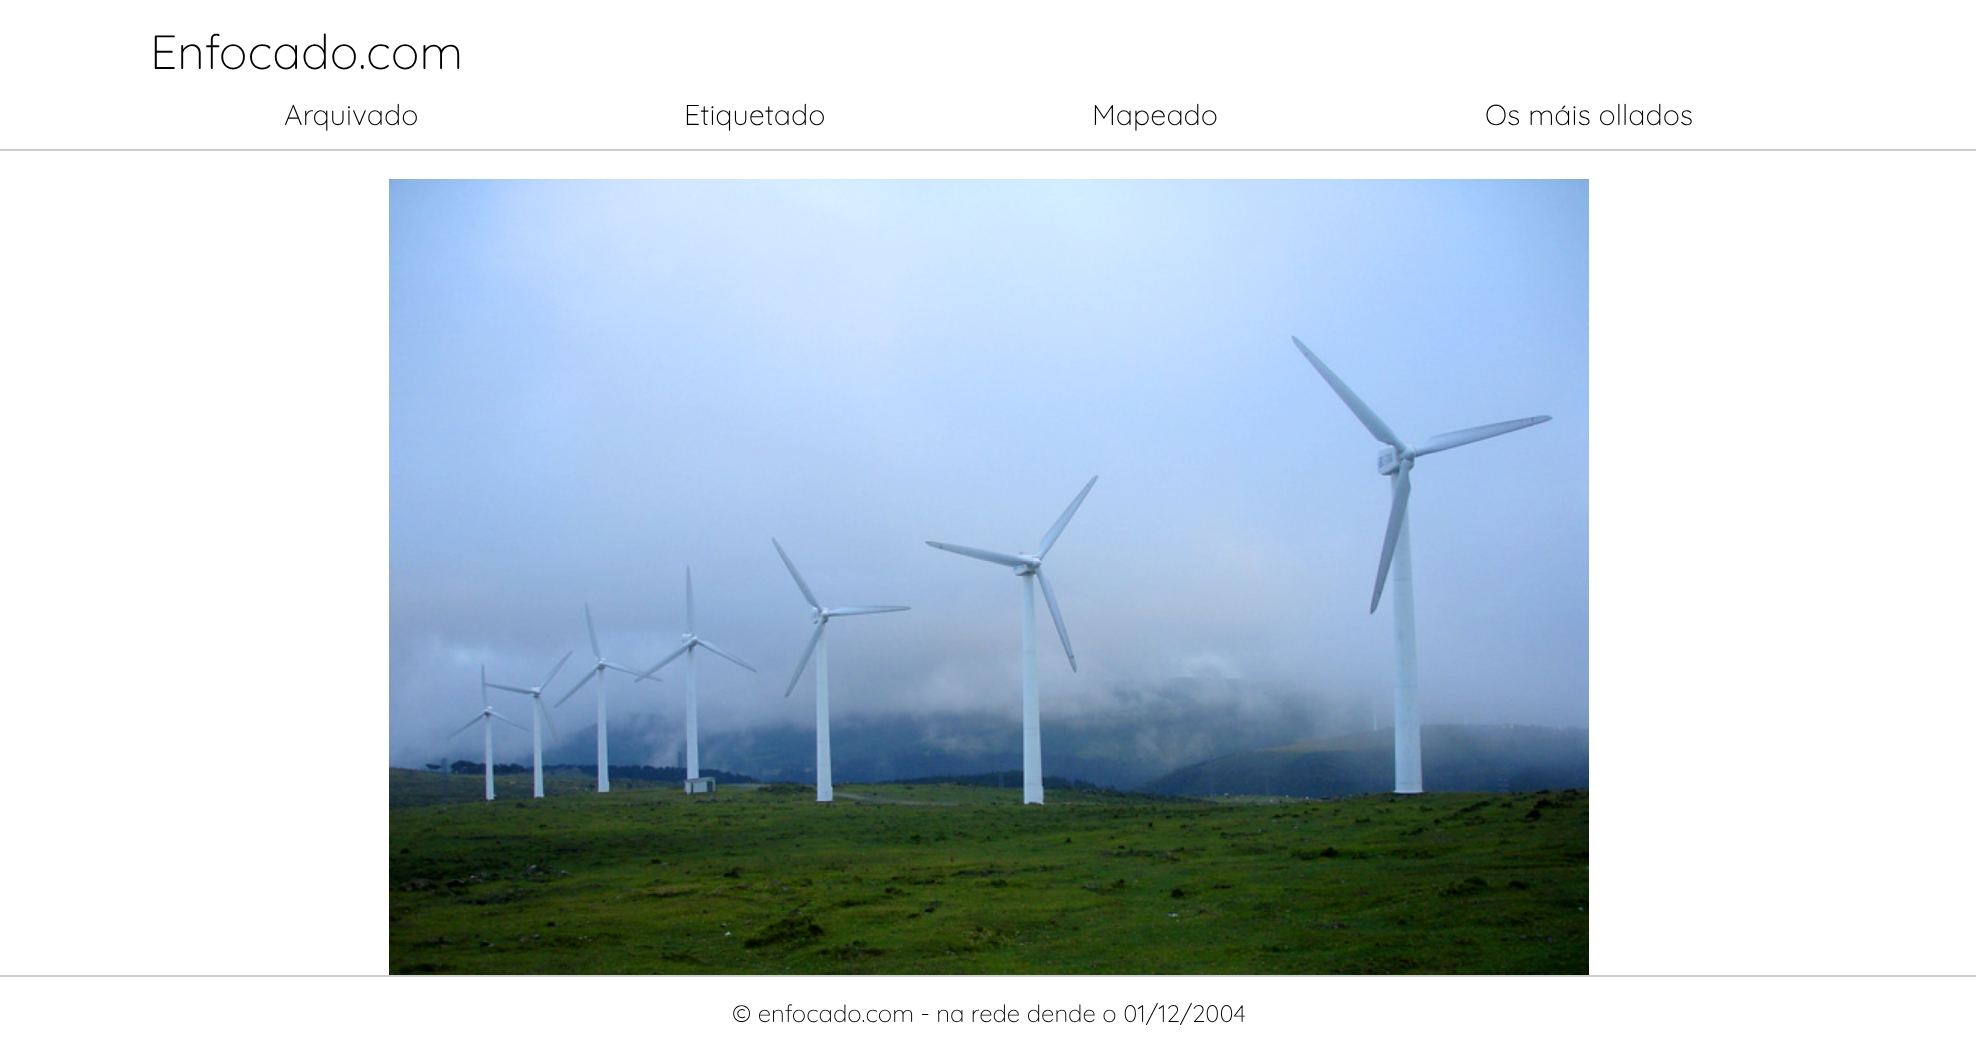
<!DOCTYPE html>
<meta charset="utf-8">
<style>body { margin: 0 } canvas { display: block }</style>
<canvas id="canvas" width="1976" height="1051"></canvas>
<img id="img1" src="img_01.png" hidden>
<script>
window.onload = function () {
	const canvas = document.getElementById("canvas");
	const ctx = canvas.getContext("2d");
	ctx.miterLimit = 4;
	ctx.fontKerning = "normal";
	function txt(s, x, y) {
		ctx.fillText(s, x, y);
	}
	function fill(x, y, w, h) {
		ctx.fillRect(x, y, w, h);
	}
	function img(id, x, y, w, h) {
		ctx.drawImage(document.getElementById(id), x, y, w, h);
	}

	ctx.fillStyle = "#FFFFFF";
	fill(0, 0, 1976, 1051);
	ctx.fillStyle = "#CCCCCC";
	fill(0, 149, 1976, 2);
	img("img1", 389, 179, 1200, 796);
	fill(0, 975, 1976, 2);
	ctx.font = "300 48px Quicksand";
	ctx.fillStyle = "#000000";
	txt("Enfocado.com", 150, 69);
	ctx.font = "300 28.75px Quicksand";
	txt("Arquivado", 284, 125);
	txt("Etiquetado", 684, 125);
	txt("Mapeado", 1092, 125);
	txt("Os máis ollados", 1485, 125);
	ctx.font = "300 24px Quicksand";
	txt("© enfocado.com - na rede dende o 01/12/2004", 732, 1022);
};
</script>
